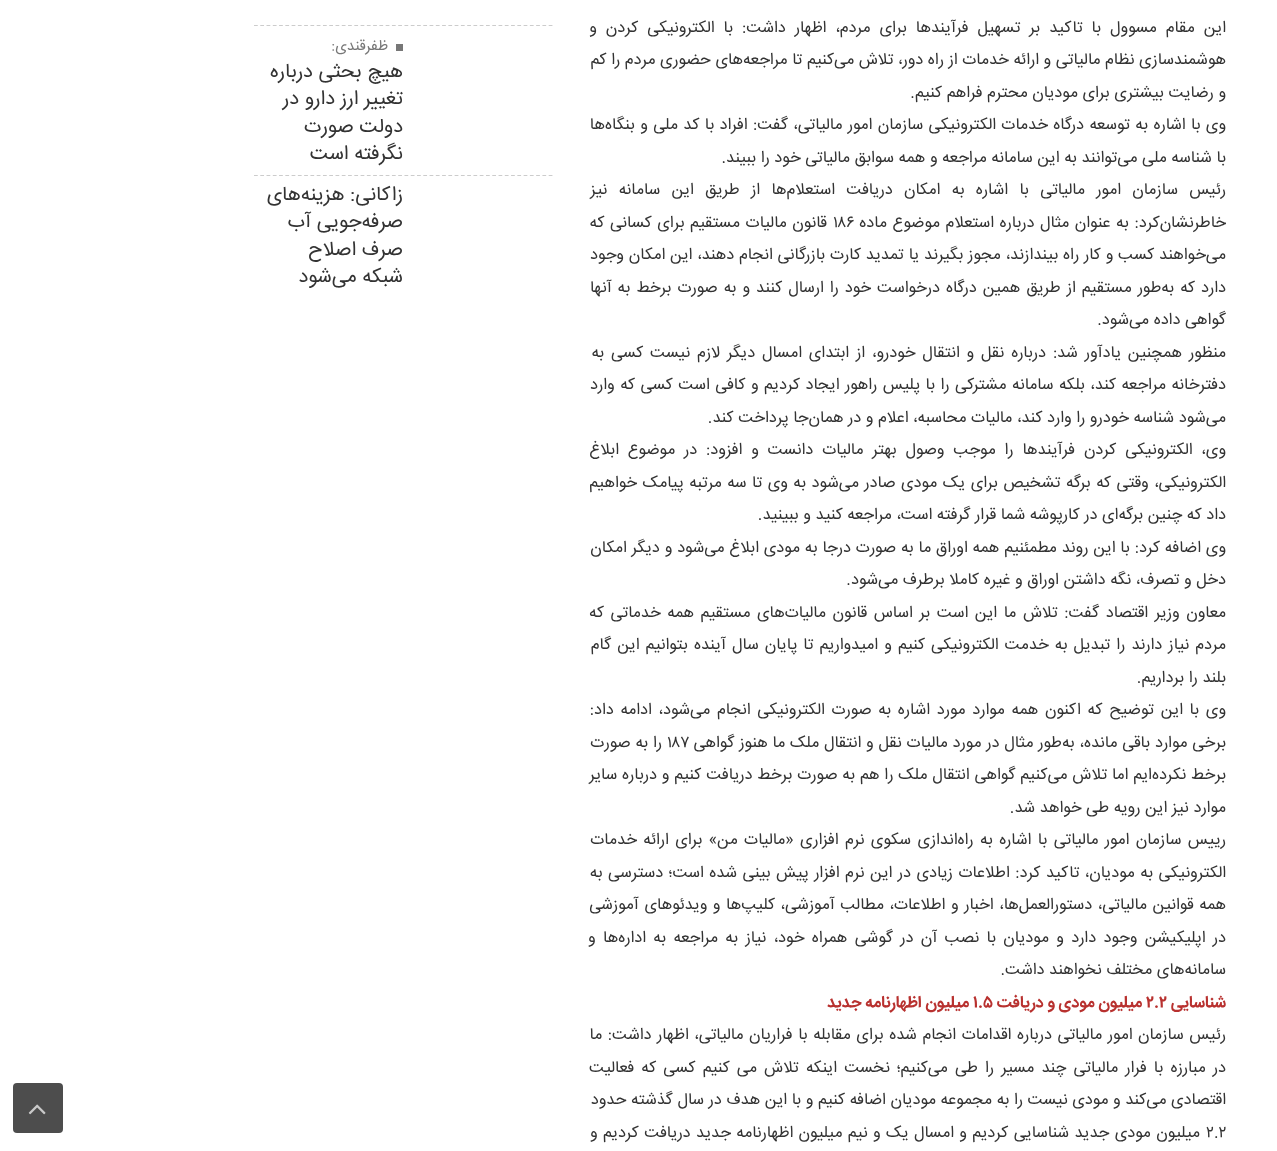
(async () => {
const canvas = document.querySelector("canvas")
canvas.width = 1277
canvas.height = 1151
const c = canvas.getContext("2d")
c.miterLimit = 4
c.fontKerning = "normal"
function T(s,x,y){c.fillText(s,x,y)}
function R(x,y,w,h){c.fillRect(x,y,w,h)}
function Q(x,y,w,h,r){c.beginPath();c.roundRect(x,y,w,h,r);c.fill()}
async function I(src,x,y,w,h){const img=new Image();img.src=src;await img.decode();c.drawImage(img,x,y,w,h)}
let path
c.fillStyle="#fff"
R(0,0,1277,1151)
c.wordSpacing="4.4px"
c.direction="rtl"
c.font="16.25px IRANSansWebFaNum"
c.fillStyle="#333"
T("این مقام مسوول با تاکید بر تسهیل فرآیندها برای مردم، اظهار داشت: با الکترونیکی کردن و",1226,32)
c.wordSpacing="0px"
T("هوشمندسازی نظام مالیاتی و ارائه خدمات از راه دور، تلاش می‌کنیم تا مراجعه‌های حضوری مردم را کم",1226,64)
T("و رضایت بیشتری برای مودیان محترم فراهم کنیم.",1226,97)
c.wordSpacing="0.75px"
T("وی با اشاره به توسعه درگاه خدمات الکترونیکی سازمان امور مالیاتی، گفت: افراد با کد ملی و بنگاه‌ها",1226,129)
c.wordSpacing="0px"
T("با شناسه ملی می‌توانند به این سامانه مراجعه و همه سوابق مالیاتی خود را ببیند.",1226,162)
c.wordSpacing="6.75px"
T("رئیس سازمان امور مالیاتی با اشاره به امکان دریافت استعلام‌ها از طریق این سامانه نیز",1226,194)
c.wordSpacing="1px"
T("خاطرنشان‌کرد: به عنوان مثال درباره استعلام موضوع ماده",1226,227)
c.wordSpacing="0px"
c.direction="ltr"
T("۱۸۶",833,227)
c.wordSpacing="1px"
c.direction="rtl"
T("قانون مالیات مستقیم برای کسانی که",827,227)
c.wordSpacing="0.25px"
T("می‌خواهند کسب و کار راه بیندازند، مجوز بگیرند یا تمدید کارت بازرگانی انجام دهند، این امکان وجود",1226,259)
c.wordSpacing="1.4px"
T("دارد که به‌طور مستقیم از طریق همین درگاه درخواست خود را ارسال کنند و به صورت برخط به آنها",1226,292)
c.wordSpacing="0px"
T("گواهی داده می‌شود.",1226,324)
c.wordSpacing="2.25px"
T("منظور همچنین یادآور شد: درباره نقل و انتقال خودرو، از ابتدای امسال دیگر لازم نیست کسی به",1226,357)
c.wordSpacing="0.9px"
T("دفترخانه مراجعه کند، بلکه سامانه مشترکی را با پلیس راهور ایجاد کردیم و کافی است کسی که وارد",1226,389)
c.wordSpacing="0px"
T("می‌شود شناسه خودرو را وارد کند، مالیات محاسبه، اعلام و در همان‌جا پرداخت کند.",1226,422)
c.wordSpacing="4.25px"
T("وی، الکترونیکی کردن فرآیندها را موجب وصول بهتر مالیات دانست و افزود: در موضوع ابلاغ",1226,454)
c.wordSpacing="0.9px"
T("الکترونیکی، وقتی که برگه تشخیص برای یک مودی صادر می‌شود به وی تا سه مرتبه پیامک خواهیم",1226,487)
c.wordSpacing="0px"
T("داد که چنین برگه‌ای در کارپوشه شما قرار گرفته است، مراجعه کنید و ببینید.",1226,519)
c.wordSpacing="0.25px"
T("وی اضافه کرد: با این روند مطمئنیم همه اوراق ما به صورت درجا به مودی ابلاغ می‌شود و دیگر امکان",1226,552)
c.wordSpacing="0px"
T("دخل و تصرف، نگه داشتن اوراق و غیره کاملا برطرف می‌شود.",1226,584)
c.wordSpacing="2px"
T("معاون وزیر اقتصاد گفت: تلاش ما این است بر اساس قانون مالیات‌های مستقیم همه خدماتی که",1226,617)
c.wordSpacing="1.5px"
T("مردم نیاز دارند را تبدیل به خدمت الکترونیکی کنیم و امیدواریم تا پایان سال آینده بتوانیم این گام",1226,649)
c.wordSpacing="0px"
T("بلند را برداریم.",1226,682)
c.wordSpacing="2.1px"
T("وی با این توضیح که اکنون همه موارد مورد اشاره به صورت الکترونیکی انجام می‌شود، ادامه داد:",1226,714)
c.wordSpacing="0.2px"
T("برخی موارد باقی مانده، به‌طور مثال در مورد مالیات نقل و انتقال ملک ما هنوز گواهی",1226,747)
c.wordSpacing="0px"
c.direction="ltr"
T("۱۸۷",667,747)
c.wordSpacing="0.2px"
c.direction="rtl"
T("را به صورت",662,747)
c.wordSpacing="0.25px"
T("برخط نکرده‌ایم اما تلاش می‌کنیم گواهی انتقال ملک را هم به صورت برخط دریافت کنیم و درباره سایر",1226,779)
c.wordSpacing="0px"
T("موارد نیز این رویه طی خواهد شد.",1226,812)
c.wordSpacing="1.8px"
T("رییس سازمان امور مالیاتی با اشاره به راه‌اندازی سکوی نرم افزاری «مالیات من» برای ارائه خدمات",1226,844)
c.wordSpacing="0.9px"
T("الکترونیکی به مودیان، تاکید کرد: اطلاعات زیادی در این نرم افزار پیش بینی شده است؛ دسترسی به",1226,877)
c.wordSpacing="1px"
T("همه قوانین مالیاتی، دستورالعمل‌ها، اخبار و اطلاعات، مطالب آموزشی، کلیپ‌ها و ویدئوهای آموزشی",1226,909)
c.wordSpacing="2.75px"
T("در اپلیکیشن وجود دارد و مودیان با نصب آن در گوشی همراه خود، نیاز به مراجعه به اداره‌ها و",1226,942)
c.wordSpacing="0px"
T("سامانه‌های مختلف نخواهند داشت.",1226,974)
c.font="bold 16.25px IRANSansWebFaNum"
c.fillStyle="#b8312f"
T("شناسایی",1226,1007)
c.direction="ltr"
T("۲.۲",1146,1007)
c.direction="rtl"
T("میلیون مودی و دریافت",1142,1007)
c.direction="ltr"
T("۱.۵",973,1007)
c.direction="rtl"
T("میلیون اظهارنامه جدید",969,1007)
c.wordSpacing="1px"
c.font="16.25px IRANSansWebFaNum"
c.fillStyle="#333"
T("رئیس سازمان امور مالیاتی درباره اقدامات انجام شده برای مقابله با فراریان مالیاتی، اظهار داشت: ما",1226,1039)
c.wordSpacing="2.5px"
T("در مبارزه با فرار مالیاتی چند مسیر را طی می‌کنیم؛ نخست اینکه تلاش می کنیم کسی که فعالیت",1226,1072)
c.wordSpacing="0px"
T("اقتصادی می‌کند و مودی نیست را به مجموعه مودیان اضافه کنیم و با این هدف در سال گذشته حدود",1226,1104)
c.direction="ltr"
T("۲.۲",1206,1137)
c.wordSpacing="0.8px"
c.direction="rtl"
T("میلیون مودی جدید شناسایی کردیم و امسال یک و نیم میلیون اظهارنامه جدید دریافت کردیم و",1200,1137)
path = new Path2D("M254 25.5h298.5")
c.strokeStyle="#ccc"
c.lineWidth=1.2
c.setLineDash([3.75,2.52])
c.stroke(path)
path = new Path2D("M254 175.5h298.5")
c.stroke(path)
c.fillStyle="#777"
R(396,44,7,7)
c.wordSpacing="0px"
c.font="15px IRANSansWebFaNum"
T("ظفرقندی:",388,50)
c.font="20px IRANSansWebFaNum"
c.fillStyle="#333"
T("هیچ بحثی درباره",403,77)
T("تغییر ارز دارو در",403,104)
T("دولت صورت",403,132)
T("نگرفته است",403,159)
T("زاکانی: هزینه‌های",403,200)
T("صرفه‌جویی آب",403,227)
T("صرف اصلاح",403,255)
T("شبکه می‌شود",403,282)
c.fillStyle="#4d4d4d"
Q(13,1083,50,50,4)
await I("1.png",28,1104,18,11)
})()
